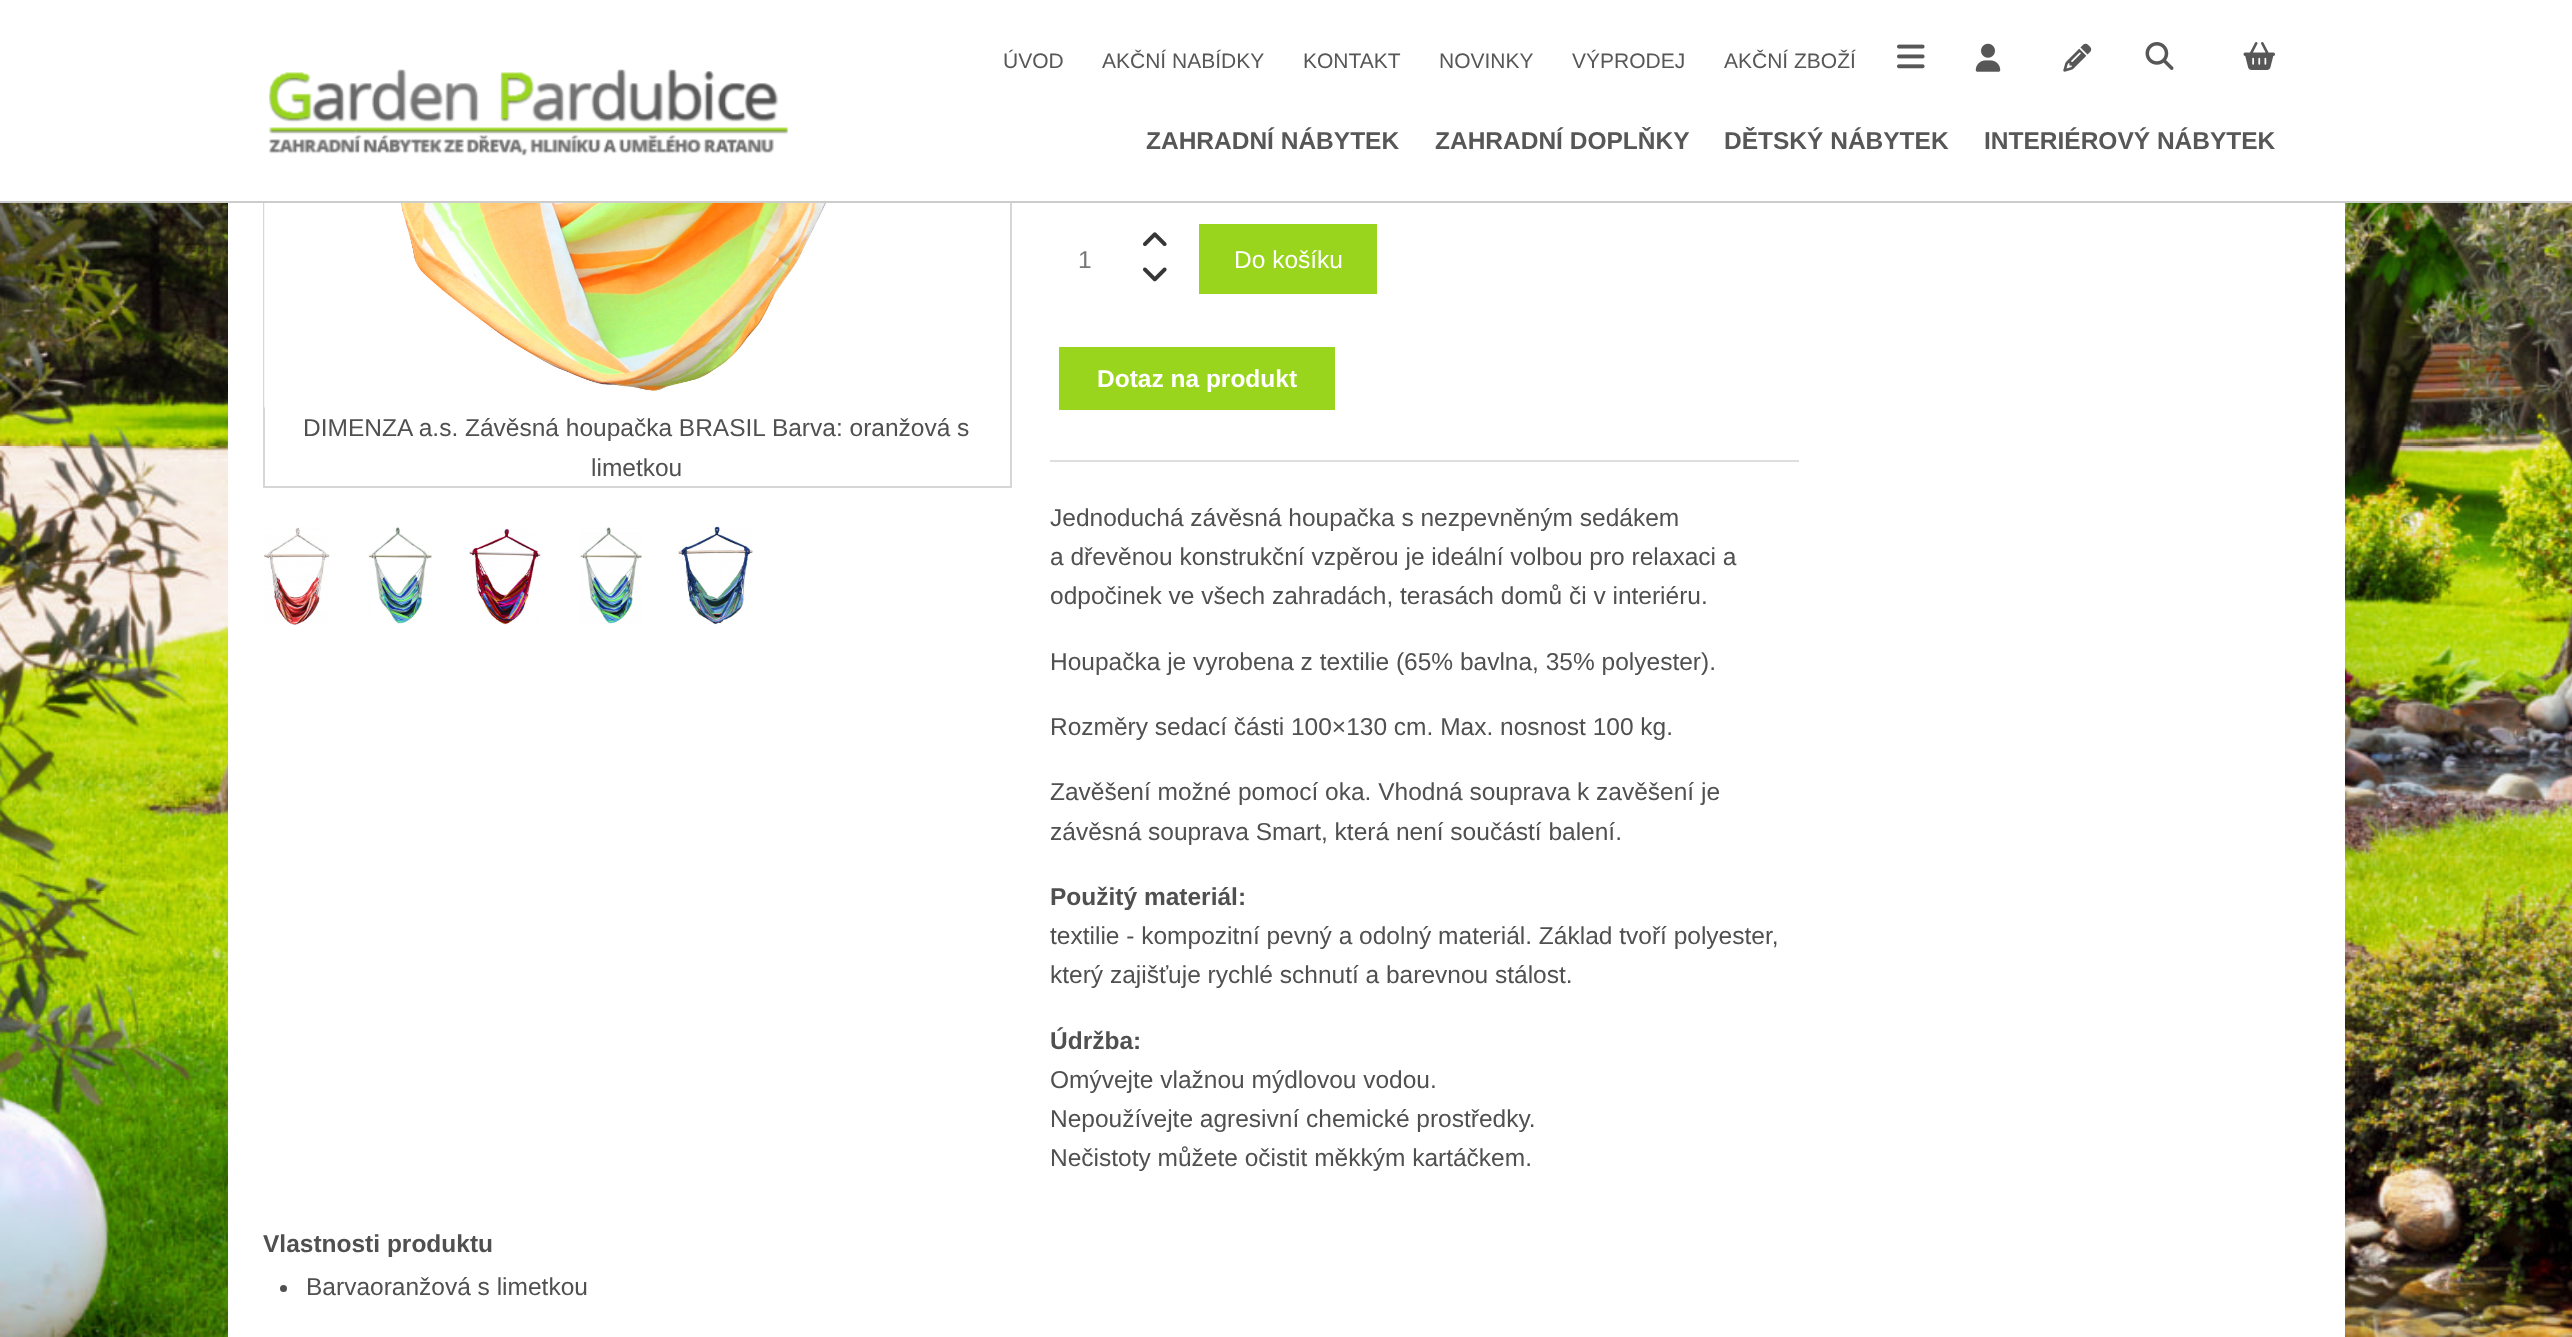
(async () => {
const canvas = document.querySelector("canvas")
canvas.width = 2572
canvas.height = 1337
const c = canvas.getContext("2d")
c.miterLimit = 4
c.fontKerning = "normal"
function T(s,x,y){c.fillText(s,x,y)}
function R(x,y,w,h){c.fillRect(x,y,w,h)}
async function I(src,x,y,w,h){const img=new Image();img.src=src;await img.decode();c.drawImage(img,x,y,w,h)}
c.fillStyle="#fff"
R(0,0,2572,1337)
await I("1.png",0,203,2572,1134)
R(228,203,2117,1134)
c.strokeStyle="#d6d6d6"
c.lineWidth=2
c.strokeRect(264,-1,747,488)
R(263,0,749,201)
c.fillStyle="#ccc"
R(0,201,2572,2)
await I("2.png",269,69,519,87)
await I("3.png",2243,42,32,28)
c.font="21px Liberation Sans"
c.fillStyle="#575757"
T("ÚVOD",1003,68)
T("AKČNÍ NABÍDKY",1102,68)
T("KONTAKT",1303,68)
T("NOVINKY",1439,68)
T("VÝPRODEJ",1572,68)
T("AKČNÍ ZBOŽÍ",1724,68)
await I("4.png",1897,44,28,25)
await I("5.png",1975,43,26,29)
await I("6.png",2063,43,29,29)
await I("7.png",2145,42,29,28)
c.font="bold 24.5px Liberation Sans"
T("ZAHRADNÍ NÁBYTEK",1146,149)
T("ZAHRADNÍ DOPLŇKY",1435,149)
T("DĚTSKÝ NÁBYTEK",1724,149)
T("INTERIÉROVÝ NÁBYTEK",1984,149)
await I("8.png",264,203,617,205)
c.font="24.5px Liberation Sans"
c.fillStyle="#505050"
T("DIMENZA a.s. Závěsná houpačka BRASIL Barva: oranžová s",303,436)
T("limetkou",591,476)
await I("9.png",264,527,66,98)
await I("10.png",368,527,64,97)
await I("11.png",469,528,72,97)
await I("12.png",580,527,62,97)
await I("13.png",678,526,75,99)
c.fillStyle="#777"
T("1",1078,268)
await I("14.png",1143,232,24,15)
await I("15.png",1143,267,24,15)
c.fillStyle="#99d51d"
R(1199,224,178,70)
c.fillStyle="#fff"
T("Do košíku",1234,268)
c.fillStyle="#99d51d"
R(1059,347,276,63)
c.font="bold 24.5px Liberation Sans"
c.fillStyle="#fff"
T("Dotaz na produkt",1097,387)
c.fillStyle="#dedede"
R(1050,460,749,2)
c.font="24.5px Liberation Sans"
c.fillStyle="#505050"
T("Jednoduchá závěsná houpačka s nezpevněným sedákem",1050,526)
T("a dřevěnou konstrukční vzpěrou je ideální volbou pro relaxaci a",1050,565)
T("odpočinek ve všech zahradách, terasách domů či v interiéru.",1050,604)
T("Houpačka je vyrobena z textilie (65% bavlna, 35% polyester).",1050,670)
T("Rozměry sedací části 100×130 cm. Max. nosnost 100 kg.",1050,735)
T("Zavěšení možné pomocí oka. Vhodná souprava k zavěšení je",1050,800)
T("závěsná souprava Smart, která není součástí balení.",1050,840)
c.font="bold 24.5px Liberation Sans"
T("Použitý materiál:",1050,905)
c.font="24.5px Liberation Sans"
T("textilie - kompozitní pevný a odolný materiál. Základ tvoří polyester,",1050,944)
T("který zajišťuje rychlé schnutí a barevnou stálost.",1050,983)
c.font="bold 24.5px Liberation Sans"
T("Údržba:",1050,1049)
c.font="24.5px Liberation Sans"
T("Omývejte vlažnou mýdlovou vodou.",1050,1088)
T("Nepoužívejte agresivní chemické prostředky.",1050,1127)
T("Nečistoty můžete očistit měkkým kartáčkem.",1050,1166)
c.font="bold 24.5px Liberation Sans"
T("Vlastnosti produktu",263,1252)
c.beginPath()
c.arc(283.5,1288.5,3.5,0,7)
c.fill()
c.font="24.5px Liberation Sans"
T("Barvaoranžová s limetkou",306,1295)
})()
